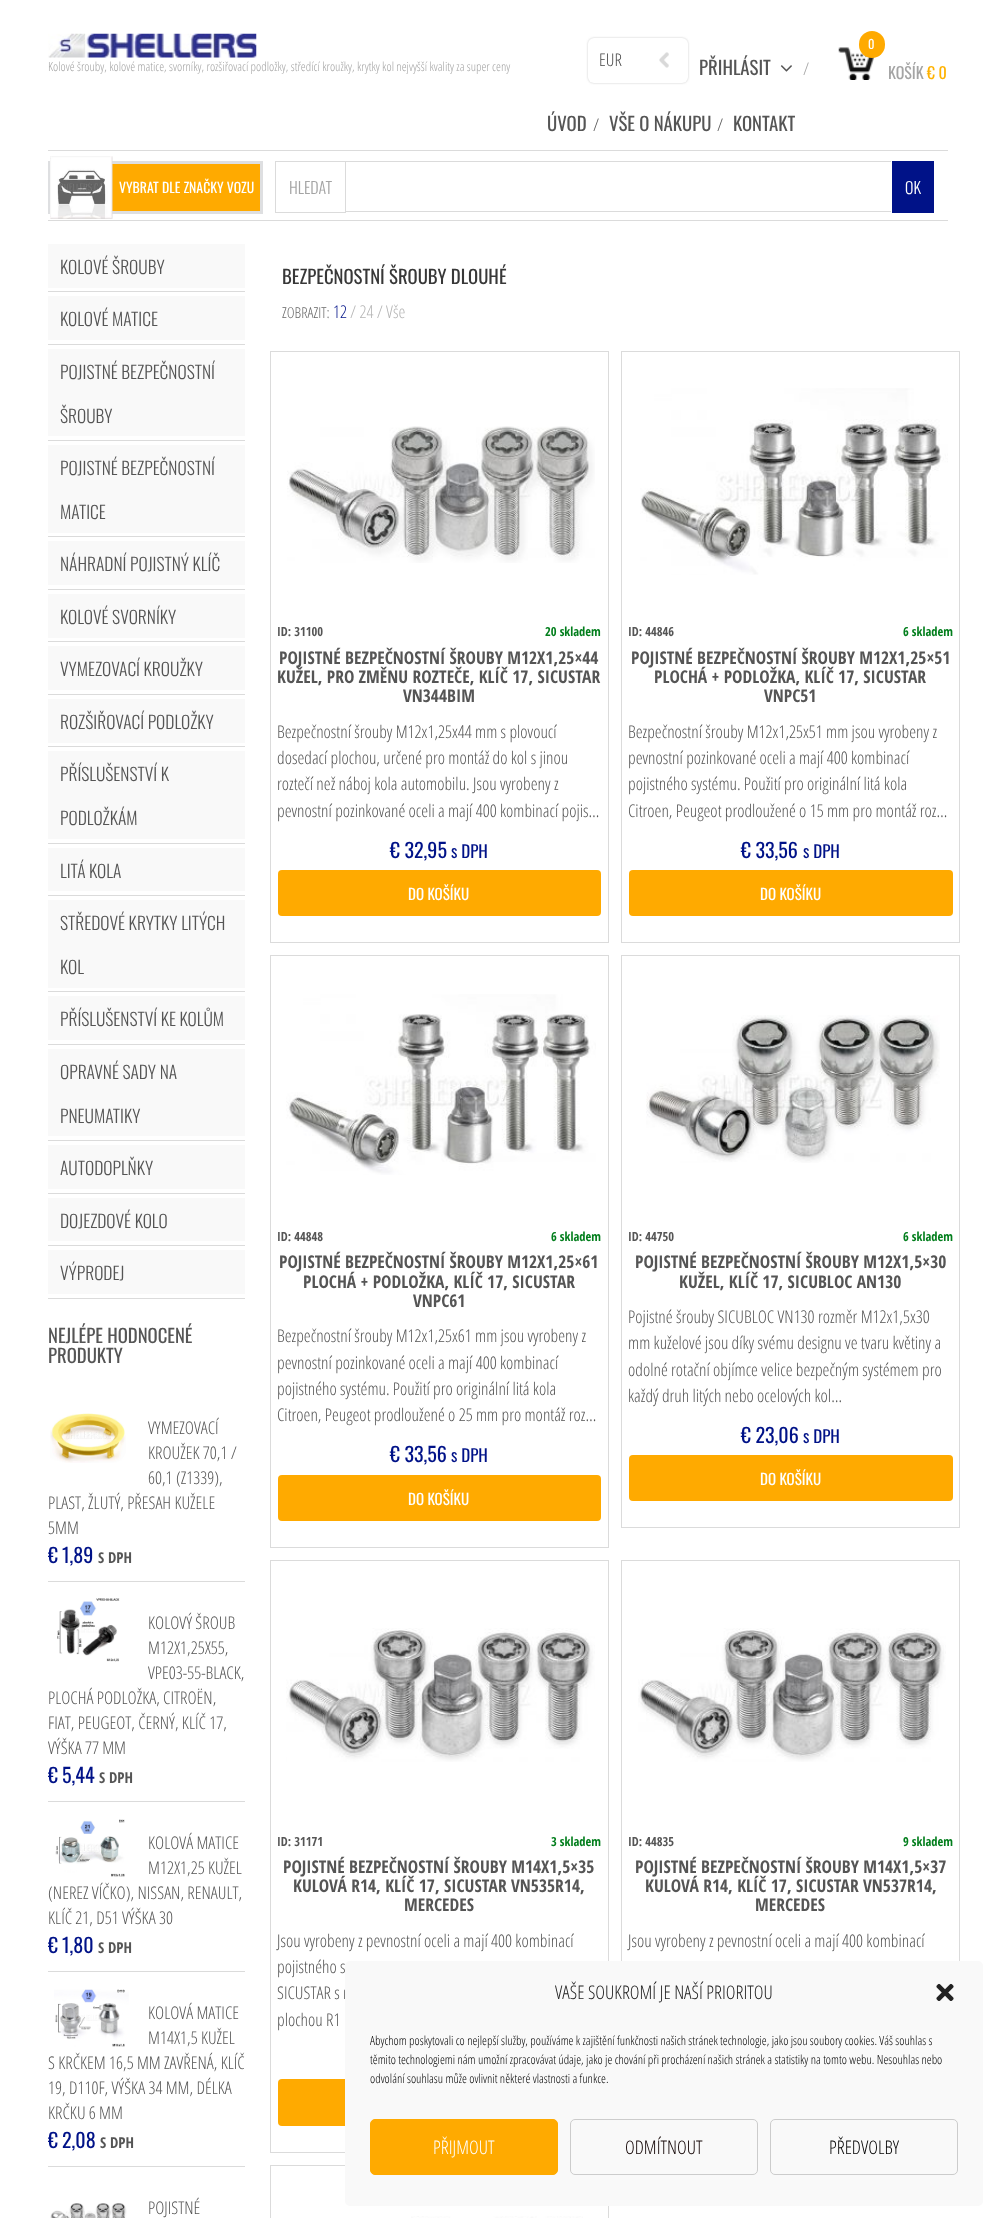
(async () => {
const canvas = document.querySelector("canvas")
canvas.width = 995
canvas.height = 2218
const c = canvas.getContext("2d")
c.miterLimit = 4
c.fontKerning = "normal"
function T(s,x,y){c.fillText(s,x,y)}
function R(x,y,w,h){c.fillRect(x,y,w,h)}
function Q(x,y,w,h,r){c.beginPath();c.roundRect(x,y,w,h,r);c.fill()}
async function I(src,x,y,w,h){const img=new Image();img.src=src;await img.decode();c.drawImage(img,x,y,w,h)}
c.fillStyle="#fff"
R(0,0,995,2218)
c.fillStyle="#dbdbdb"
R(48,150,900,1)
await I("1.png",48,33,209,25)
c.font="300 12.5px Open Sans Condensed"
c.fillStyle="#a4a4a4"
T("Kolové šrouby, kolové matice, svorníky, rozšiřovací podložky, středící kroužky, krytky kol nejvyšší kvality za super ceny",48,71)
c.fillStyle="#ccc"
c.filter="blur(1px)"
c.beginPath()
c.roundRect(588,38,100,45,6)
c.fill()
c.filter="none"
c.fillStyle="#fff"
Q(588,38,100,45,6)
c.font="300 17.5px Open Sans Condensed"
c.fillStyle="#474747"
T("EUR",599,66)
await I("2.png",659,52,10,16)
c.font="18.75px Oswald"
c.fillStyle="#555"
T("PŘIHLÁSIT",699,75)
await I("3.png",780,65,12,7)
c.font="300 17.5px Open Sans Condensed"
c.fillStyle="#a4a4a4"
T("/",803,75)
await I("4.png",838,47,36,33)
c.fillStyle="#fa0"
Q(859,31,26,27,13)
c.font="12.5px Oswald"
c.fillStyle="#fff"
T("0",868,49)
c.font="16px Oswald"
c.fillStyle="#a4a4a4"
T("KOŠÍK",888,79)
c.fillStyle="#ffb200"
T("€ 0",927,79)
c.font="18.75px Oswald"
c.fillStyle="#555"
T("ÚVOD",547,131)
c.font="300 17.5px Open Sans Condensed"
T("/",593,131)
c.font="18.75px Oswald"
T("VŠE O NÁKUPU",609,131)
c.font="300 17.5px Open Sans Condensed"
T("/",717,131)
c.font="18.75px Oswald"
T("KONTAKT",733,131)
c.fillStyle="#dbdbdb"
R(48,220,900,1)
c.fillStyle="#fa0"
R(112,164,148,47)
c.strokeStyle="#dedfe1"
c.lineWidth=3
c.strokeRect(49.5,162.5,212,50)
await I("5.png",50,156,63,63)
c.font="13.75px Oswald"
c.fillStyle="#fff"
T("VYBRAT DLE ZNAČKY VOZU",119,193)
c.strokeStyle="#dbdbdb"
c.lineWidth=1
c.strokeRect(275.5,161.5,70,51)
c.font="300 16px Oswald"
c.fillStyle="#a4a4a4"
T("HLEDAT",289,194)
c.fillStyle="#dbdbdb"
R(346,161,545,1)
R(346,211,545,1)
c.fillStyle="#001288"
R(892,161,42,52)
c.fillStyle="#fff"
T("OK",905,194)
c.fillStyle="#dbdbdb"
R(48,291,197,1)
c.fillStyle="#f9f9f9"
R(48,244,197,44)
c.font="300 17.5px Oswald"
c.fillStyle="#555"
T("KOLOVÉ ŠROUBY",60,274)
c.fillStyle="#dbdbdb"
R(48,344,197,1)
c.fillStyle="#f9f9f9"
R(48,296,197,44)
c.fillStyle="#555"
T("KOLOVÉ MATICE",60,326)
c.fillStyle="#dbdbdb"
R(48,440,197,1)
c.fillStyle="#f9f9f9"
R(48,349,197,87)
c.fillStyle="#555"
T("POJISTNÉ BEZPEČNOSTNÍ",60,379)
T("ŠROUBY",60,423)
c.fillStyle="#dbdbdb"
R(48,536,197,1)
c.fillStyle="#f9f9f9"
R(48,445,197,88)
c.fillStyle="#555"
T("POJISTNÉ BEZPEČNOSTNÍ",60,475)
T("MATICE",60,519)
c.fillStyle="#dbdbdb"
R(48,589,197,1)
c.fillStyle="#f9f9f9"
R(48,541,197,44)
c.fillStyle="#555"
T("NÁHRADNÍ POJISTNÝ KLÍČ",60,571)
c.fillStyle="#dbdbdb"
R(48,641,197,1)
c.fillStyle="#f9f9f9"
R(48,594,197,44)
c.fillStyle="#555"
T("KOLOVÉ SVORNÍKY",60,624)
c.fillStyle="#dbdbdb"
R(48,694,197,1)
c.fillStyle="#f9f9f9"
R(48,646,197,44)
c.fillStyle="#555"
T("VYMEZOVACÍ KROUŽKY",60,676)
c.fillStyle="#dbdbdb"
R(48,746,197,1)
c.fillStyle="#f9f9f9"
R(48,699,197,44)
c.fillStyle="#555"
T("ROZŠIŘOVACÍ PODLOŽKY",60,729)
c.fillStyle="#dbdbdb"
R(48,843,197,1)
c.fillStyle="#f9f9f9"
R(48,751,197,88)
c.fillStyle="#555"
T("PŘÍSLUŠENSTVÍ K",60,781)
T("PODLOŽKÁM",60,825)
c.fillStyle="#dbdbdb"
R(48,895,197,1)
c.fillStyle="#f9f9f9"
R(48,848,197,43)
c.fillStyle="#555"
T("LITÁ KOLA",60,878)
c.fillStyle="#dbdbdb"
R(48,991,197,1)
c.fillStyle="#f9f9f9"
R(48,900,197,88)
c.fillStyle="#555"
T("STŘEDOVÉ KRYTKY LITÝCH",60,930)
T("KOL",60,974)
c.fillStyle="#dbdbdb"
R(48,1044,197,1)
c.fillStyle="#f9f9f9"
R(48,996,197,44)
c.fillStyle="#555"
T("PŘÍSLUŠENSTVÍ KE KOLŮM",60,1026)
c.fillStyle="#dbdbdb"
R(48,1140,197,1)
c.fillStyle="#f9f9f9"
R(48,1049,197,87)
c.fillStyle="#555"
T("OPRAVNÉ SADY NA",60,1079)
T("PNEUMATIKY",60,1123)
c.fillStyle="#dbdbdb"
R(48,1193,197,1)
c.fillStyle="#f9f9f9"
R(48,1145,197,44)
c.fillStyle="#555"
T("AUTODOPLŇKY",60,1175)
c.fillStyle="#dbdbdb"
R(48,1245,197,1)
c.fillStyle="#f9f9f9"
R(48,1198,197,43)
c.fillStyle="#555"
T("DOJEZDOVÉ KOLO",60,1228)
c.fillStyle="#dbdbdb"
R(48,1298,197,1)
c.fillStyle="#f9f9f9"
R(48,1250,197,44)
c.fillStyle="#555"
T("VÝPRODEJ",60,1280)
c.font="18.75px Oswald"
T("NEJLÉPE HODNOCENÉ",48,1343)
T("PRODUKTY",48,1363)
c.fillStyle="#dbdbdb"
R(48,1581,197,1)
await I("6.png",50,1413,76,50)
c.font="300 17.5px Open Sans Condensed"
c.fillStyle="#555"
T("VYMEZOVACÍ",148,1434)
T("KROUŽEK 70,1 /",148,1459)
T("60,1 (Z1339),",148,1484)
T("PLAST, ŽLUTÝ, PŘESAH KUŽELE",48,1509)
T("5MM",48,1534)
c.save()
c.beginPath()
c.rect(48,1390,197,191)
c.clip()
c.font="20px Oswald"
c.fillStyle="#001288"
T("€",48,1563)
c.restore()
c.font="20px Oswald"
c.fillStyle="#001288"
T("1,89",62,1563)
c.font="bold 15px Open Sans Condensed"
c.fillStyle="#555"
T("S DPH",98,1563)
c.fillStyle="#dbdbdb"
R(48,1801,197,1)
await I("7.png",57,1598,63,64)
c.font="300 17.5px Open Sans Condensed"
c.fillStyle="#555"
T("KOLOVÝ ŠROUB",148,1629)
T("M12X1,25X55,",148,1654)
T("VPE03-55-BLACK,",148,1679)
T("PLOCHÁ PODLOŽKA, CITROËN,",48,1704)
T("FIAT, PEUGEOT, ČERNÝ, KLÍČ 17,",48,1729)
T("VÝŠKA 77 MM",48,1754)
c.save()
c.beginPath()
c.rect(48,1585,197,216)
c.clip()
c.font="20px Oswald"
c.fillStyle="#001288"
T("€",48,1783)
c.restore()
c.font="20px Oswald"
c.fillStyle="#001288"
T("5,44",62,1783)
c.font="bold 15px Open Sans Condensed"
c.fillStyle="#555"
T("S DPH",99,1783)
c.fillStyle="#dbdbdb"
R(48,1971,197,1)
await I("8.png",55,1819,70,58)
c.font="300 17.5px Open Sans Condensed"
c.fillStyle="#555"
T("KOLOVÁ MATICE",148,1849)
T("M12X1,25 KUŽEL",148,1874)
T("(NEREZ VÍČKO), NISSAN, RENAULT,",48,1899)
T("KLÍČ 21, D51 VÝŠKA 30",48,1924)
c.save()
c.beginPath()
c.rect(48,1805,197,166)
c.clip()
c.font="20px Oswald"
c.fillStyle="#001288"
T("€",48,1953)
c.restore()
c.font="20px Oswald"
c.fillStyle="#001288"
T("1,80",62,1953)
c.font="bold 15px Open Sans Condensed"
c.fillStyle="#555"
T("S DPH",98,1953)
c.fillStyle="#dbdbdb"
R(48,2166,197,1)
await I("9.png",54,1989,75,58)
c.font="300 17.5px Open Sans Condensed"
c.fillStyle="#555"
T("KOLOVÁ MATICE",148,2019)
T("M14X1,5 KUŽEL",148,2044)
T("S KRČKEM 16,5 MM ZAVŘENÁ, KLÍČ",48,2069)
T("19, D110F, VÝŠKA 34 MM, DÉLKA",48,2094)
T("KRČKU 6 MM",48,2119)
c.save()
c.beginPath()
c.rect(48,1975,197,191)
c.clip()
c.font="20px Oswald"
c.fillStyle="#001288"
T("€",48,2148)
c.restore()
c.font="20px Oswald"
c.fillStyle="#001288"
T("2,08",62,2148)
c.font="bold 15px Open Sans Condensed"
c.fillStyle="#555"
T("S DPH",100,2148)
await I("10.png",50,2203,77,15)
c.font="300 17.5px Open Sans Condensed"
T("POJISTNÉ",148,2214)
c.font="18.75px Oswald"
c.fillStyle="#383838"
T("BEZPEČNOSTNÍ ŠROUBY DLOUHÉ",282,284)
c.font="300 15px Open Sans Condensed"
c.fillStyle="#686868"
T("ZOBRAZIT:",282,318)
c.font="300 17.5px Open Sans Condensed"
c.fillStyle="#001288"
T("12",333,318)
c.fillStyle="#b4b4b4"
T("/ 24 / Vše",350,318)
c.strokeRect(270.5,351.5,338,591)
await I("11.png",287,426,308,137)
c.font="bold 12.5px Open Sans Condensed"
c.fillStyle="#555"
T("ID: 31100",277,636)
c.fillStyle="#027e1c"
T("20 skladem",545,636)
c.font="bold 17.5px Open Sans Condensed"
c.fillStyle="#555"
T("POJISTNÉ BEZPEČNOSTNÍ ŠROUBY M12X1,25×44",279,664)
T("KUŽEL, PRO ZMĚNU ROZTEČE, KLÍČ 17, SICUSTAR",277,683)
T("VN344BIM",403,702)
c.font="300 17.5px Open Sans Condensed"
T("Bezpečnostní šrouby M12x1,25x44 mm s plovoucí",277,738)
T("dosedací plochou, určené pro montáž do kol s jinou",277,764)
T("roztečí než náboj kola automobilu. Jsou vyrobeny z",277,790)
T("pevnostní pozinkované oceli a mají 400 kombinací pojis…",277,817)
c.font="20px Oswald"
c.fillStyle="#001288"
T("€ 32,95",390,858)
c.font="17px Oswald"
T("s DPH",451,858)
c.fillStyle="#fa0"
Q(278,870,323,46,4)
c.font="15px Oswald"
c.fillStyle="#fff"
T("DO KOŠÍKU",408,900)
c.strokeRect(621.5,351.5,338,591)
await I("12.png",640,388,308,187)
c.font="bold 12.5px Open Sans Condensed"
c.fillStyle="#555"
T("ID: 44846",628,636)
c.fillStyle="#027e1c"
T("6 skladem",903,636)
c.font="bold 17.5px Open Sans Condensed"
c.fillStyle="#555"
T("POJISTNÉ BEZPEČNOSTNÍ ŠROUBY M12X1,25×51",631,664)
T("PLOCHÁ + PODLOŽKA, KLÍČ 17, SICUSTAR",654,683)
T("VNPC51",764,702)
c.font="300 17.5px Open Sans Condensed"
T("Bezpečnostní šrouby M12x1,25x51 mm jsou vyrobeny z",628,738)
T("pevnostní pozinkované oceli a mají 400 kombinací",628,764)
T("pojistného systému. Použití pro originální litá kola",628,790)
T("Citroen, Peugeot prodloužené o 15 mm pro montáž roz…",628,817)
c.font="20px Oswald"
c.fillStyle="#001288"
T("€ 33,56",741,858)
c.font="17px Oswald"
T("s DPH",803,858)
c.fillStyle="#fa0"
Q(629,870,324,46,4)
c.font="15px Oswald"
c.fillStyle="#fff"
T("DO KOŠÍKU",760,900)
c.strokeRect(270.5,955.5,338,592)
await I("13.png",286,994,310,181)
c.font="bold 12.5px Open Sans Condensed"
c.fillStyle="#555"
T("ID: 44848",277,1241)
c.fillStyle="#027e1c"
T("6 skladem",551,1241)
c.font="bold 17.5px Open Sans Condensed"
c.fillStyle="#555"
T("POJISTNÉ BEZPEČNOSTNÍ ŠROUBY M12X1,25×61",279,1268)
T("PLOCHÁ + PODLOŽKA, KLÍČ 17, SICUSTAR",303,1288)
T("VNPC61",413,1307)
c.font="300 17.5px Open Sans Condensed"
T("Bezpečnostní šrouby M12x1,25x61 mm jsou vyrobeny z",277,1342)
T("pevnostní pozinkované oceli a mají 400 kombinací",277,1369)
T("pojistného systému. Použití pro originální litá kola",277,1395)
T("Citroen, Peugeot prodloužené o 25 mm pro montáž roz…",277,1421)
c.font="20px Oswald"
c.fillStyle="#001288"
T("€ 33,56",390,1462)
c.font="17px Oswald"
T("s DPH",451,1462)
c.fillStyle="#fa0"
Q(278,1475,323,46,4)
c.font="15px Oswald"
c.fillStyle="#fff"
T("DO KOŠÍKU",408,1505)
c.strokeRect(621.5,955.5,338,572)
await I("14.png",646,1015,294,148)
c.font="bold 12.5px Open Sans Condensed"
c.fillStyle="#555"
T("ID: 44750",628,1241)
c.fillStyle="#027e1c"
T("6 skladem",903,1241)
c.font="bold 17.5px Open Sans Condensed"
c.fillStyle="#555"
T("POJISTNÉ BEZPEČNOSTNÍ ŠROUBY M12X1,5×30",635,1268)
T("KUŽEL, KLÍČ 17, SICUBLOC AN130",679,1288)
c.font="300 17.5px Open Sans Condensed"
T("Pojistné šrouby SICUBLOC VN130 rozměr M12x1,5x30",628,1323)
T("mm kuželové jsou díky svému designu ve tvaru květiny a",628,1349)
T("odolné rotační objímce velice bezpečným systémem pro",628,1376)
T("každý druh litých nebo ocelových kol…",628,1402)
c.font="20px Oswald"
c.fillStyle="#001288"
T("€ 23,06",741,1443)
c.font="17px Oswald"
T("s DPH",803,1443)
c.fillStyle="#fa0"
Q(629,1455,324,46,4)
c.font="15px Oswald"
c.fillStyle="#fff"
T("DO KOŠÍKU",760,1485)
c.strokeRect(270.5,1560.5,338,592)
await I("15.png",286,1628,309,134)
c.font="bold 12.5px Open Sans Condensed"
c.fillStyle="#555"
T("ID: 31171",277,1846)
c.fillStyle="#027e1c"
T("3 skladem",551,1846)
c.font="bold 17.5px Open Sans Condensed"
c.fillStyle="#555"
T("POJISTNÉ BEZPEČNOSTNÍ ŠROUBY M14X1,5×35",283,1873)
T("KULOVÁ R14, KLÍČ 17, SICUSTAR VN535R14,",293,1892)
T("MERCEDES",404,1911)
c.font="300 17.5px Open Sans Condensed"
T("Jsou vyrobeny z pevnostní oceli a mají 400 kombinací",277,1947)
T("pojistného s",277,1973)
T("SICUSTAR s r",277,1999)
T("plochou R1",277,2026)
c.fillStyle="#fa0"
Q(278,2079,323,47,4)
c.strokeRect(621.5,1560.5,338,592)
await I("16.png",638,1628,308,134)
c.font="bold 12.5px Open Sans Condensed"
c.fillStyle="#555"
T("ID: 44835",628,1846)
c.fillStyle="#027e1c"
T("9 skladem",903,1846)
c.font="bold 17.5px Open Sans Condensed"
c.fillStyle="#555"
T("POJISTNÉ BEZPEČNOSTNÍ ŠROUBY M14X1,5×37",635,1873)
T("KULOVÁ R14, KLÍČ 17, SICUSTAR VN537R14,",645,1892)
T("MERCEDES",755,1911)
c.font="300 17.5px Open Sans Condensed"
T("Jsou vyrobeny z pevnostní oceli a mají 400 kombinací",628,1947)
c.strokeRect(270.5,2165.5,338,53)
await I("17.png",411,2216,172,2)
c.fillStyle="#f9f9f9"
Q(345,1961,638,245,5)
c.font="300 18.75px Open Sans Condensed"
c.fillStyle="#222"
T("VAŠE SOUKROMÍ JE NAŠÍ PRIORITOU",555,1999)
await I("18.png",936,1983,18,18)
c.font="300 12.5px Open Sans Condensed"
c.fillStyle="#000"
T("Abychom poskytovali co nejlepší služby, používáme k zajištění funkčnosti našich stránek technologie, jako jsou soubory cookies. Váš souhlas s",370,2045)
T("těmito technologiemi nám umožní zpracovávat údaje, jako je chování při procházení našich stránek a statistiky na tomto webu. Nesouhlas nebo",370,2064)
T("odvolání souhlasu může ovlivnit některé vlastnosti a funkce.",370,2083)
c.fillStyle="#fa0"
c.beginPath()
c.roundRect(370.5,2119.5,187,55,4.5)
c.fill()
c.strokeStyle="#fa0"
c.stroke()
c.font="300 18.75px Open Sans Condensed"
c.fillStyle="#fff"
T("PŘIJMOUT",433,2154)
c.beginPath()
c.roundRect(570.5,2119.5,187,55,4.5)
c.strokeStyle="#ccc"
c.stroke()
c.fillStyle="#0f0000"
T("ODMÍTNOUT",625,2154)
c.beginPath()
c.roundRect(770.5,2119.5,187,55,4.5)
c.stroke()
c.fillStyle="#000"
T("PŘEDVOLBY",829,2154)
})()
